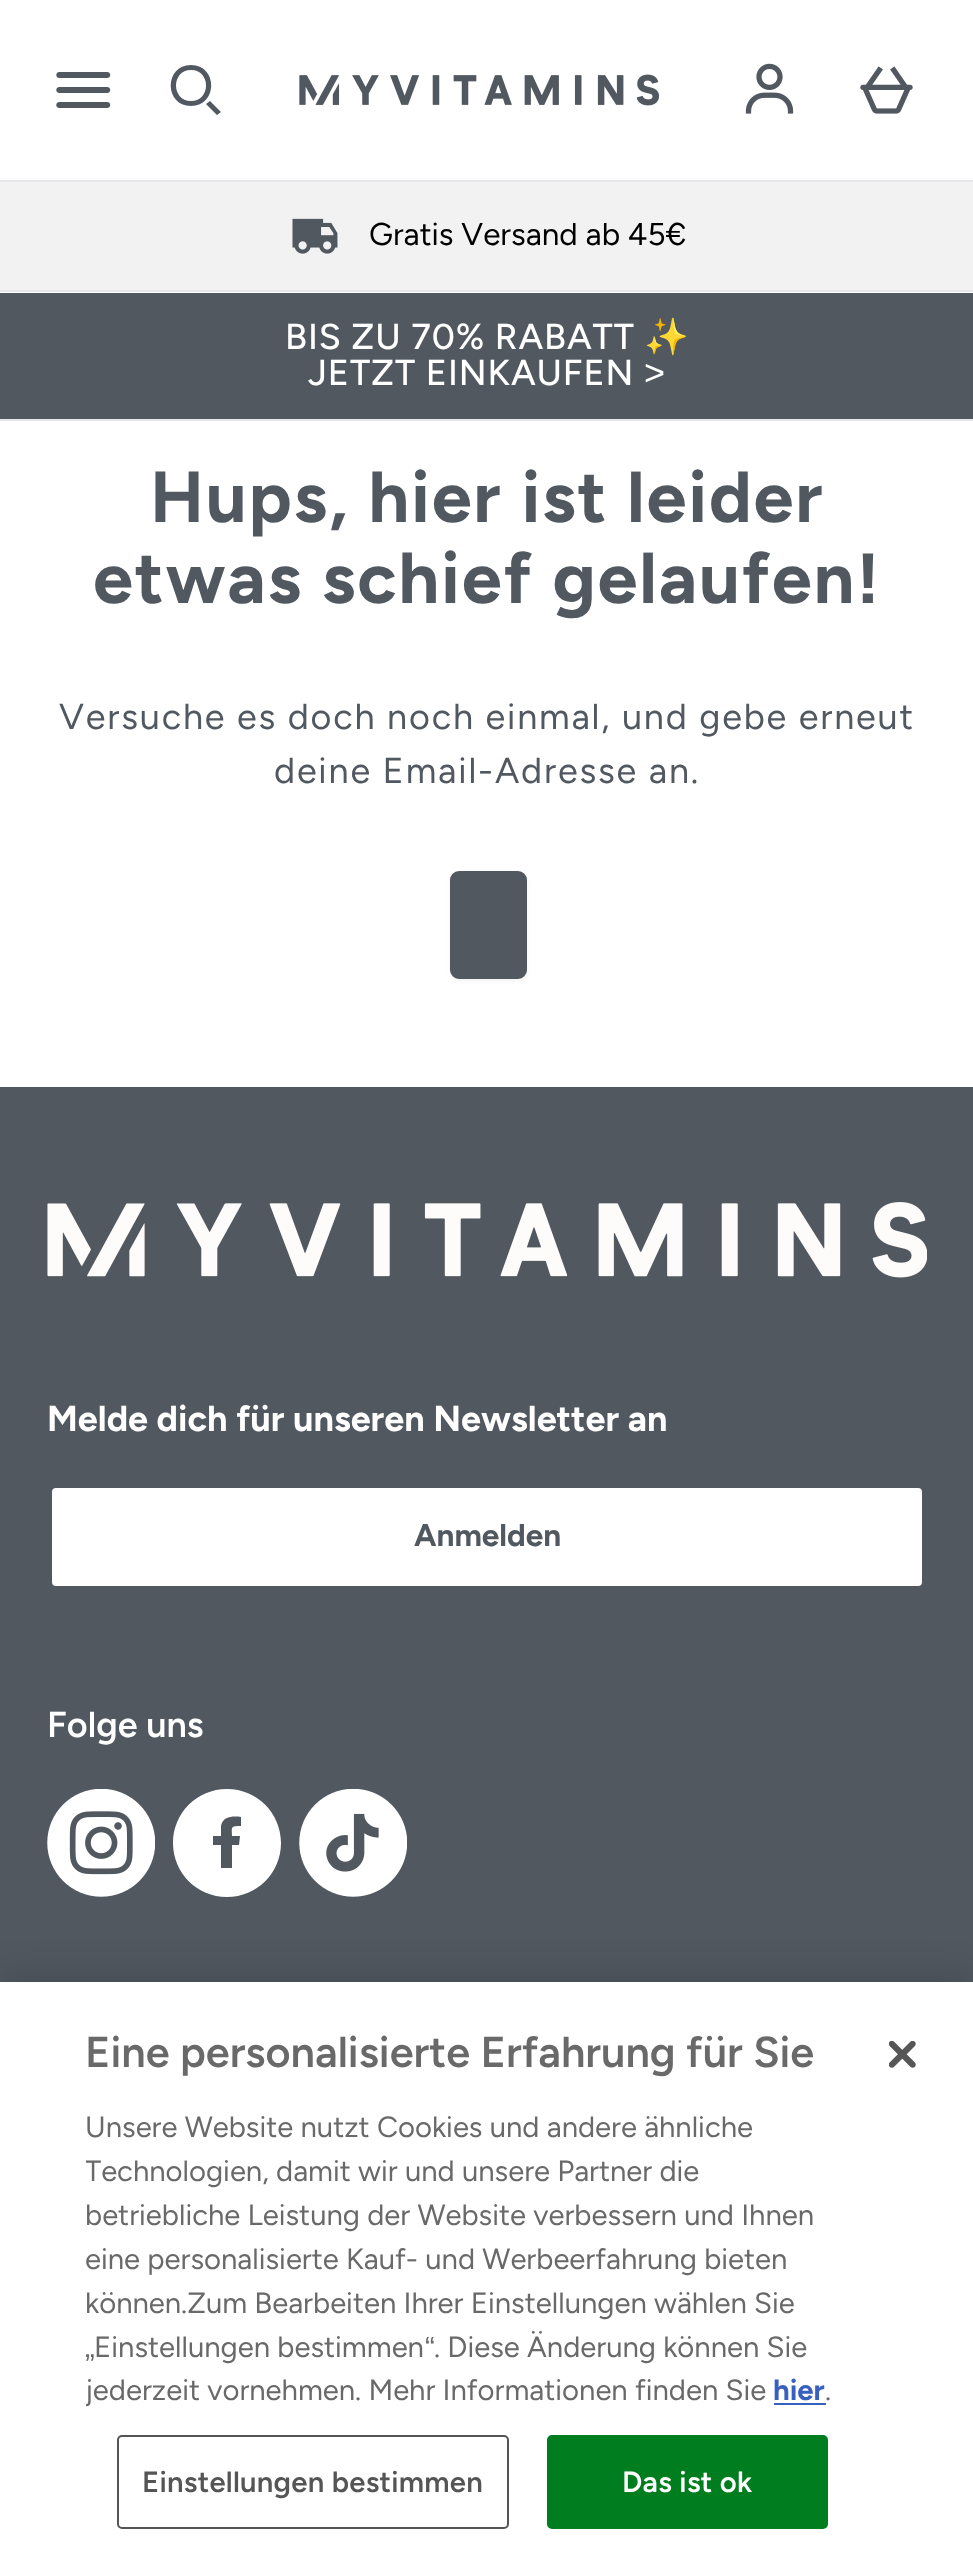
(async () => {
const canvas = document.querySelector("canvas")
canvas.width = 973
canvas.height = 2563
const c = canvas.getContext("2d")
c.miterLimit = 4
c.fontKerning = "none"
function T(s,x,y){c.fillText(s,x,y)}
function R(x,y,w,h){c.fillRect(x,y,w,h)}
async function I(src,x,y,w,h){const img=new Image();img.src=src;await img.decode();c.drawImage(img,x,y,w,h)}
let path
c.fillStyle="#fff"
R(0,0,973,2563)
await I("1.png",56,72,55,36)
c.fillStyle="#515860"
path = new Path2D("M221 112l-11-11l-4 3l11 11zm-30-42c-20 0-20 31 0 31c20 0 20-31 0-31zm0-5c27 0 27 41 0 41c-27 0-27-41 0-41z")
c.fill(path,"evenodd")
await I("2.png",299,74,360,32)
await I("3.png",745,63,49,51)
await I("4.png",860,66,53,48)
c.fillStyle="#f2f2f2"
R(0,182,973,108)
c.fillStyle="#e5e7eb"
R(0,180,973,2)
await I("5.png",292,218,46,36)
c.font="31.5px Figtree"
c.fillStyle="#000"
T("Gratis Versand ab 45€",369,245)
c.fillStyle="#515860"
R(0,293,973,126)
c.fillStyle="#e5e7eb"
R(0,290,973,2)
R(0,419,973,2)
c.letterSpacing="0.9px"
c.font="500 36px Figtree"
c.fillStyle="#fff"
T("BIS ZU 70% RABATT",285,349)
c.font="36px Noto Color Emoji"
T("✨",644,349)
c.font="500 36px Figtree"
T("JETZT EINKAUFEN",308,385)
c.font="36px Liberation Sans"
T(">",644,385)
c.letterSpacing="1.8px"
c.font="bold 72px Figtree"
c.fillStyle="#515860"
T("Hups, hier ist leider",150,522)
T("etwas schief gelaufen",93,603)
c.font="bold 72px Liberation Sans"
T("!",856,603)
c.font="36px Figtree"
T("Versuche es doch noch einmal, und gebe erneut",59,729)
T("deine Email-Adresse an.",274,783)
c.fillStyle="#0000000d"
c.filter="blur(2px)"
c.beginPath()
c.roundRect(450,873,77,108,9)
c.fill()
c.filter="none"
c.fillStyle="#515860"
c.beginPath()
c.roundRect(451,872,75,106,8)
c.fill()
c.strokeStyle="#515860"
c.lineWidth=2
c.stroke()
R(0,1087,973,895)
await I("6.png",47,1202,880,76)
c.letterSpacing="0px"
c.font="bold 36px Figtree"
c.fillStyle="#fff"
T("Melde dich für unseren Newsletter an",47,1431)
c.beginPath()
c.roundRect(49.5,1485.5,875,103,6.5)
c.fill()
c.lineWidth=5
c.stroke()
c.font="bold 31.5px Figtree"
c.fillStyle="#515860"
T("Anmelden",414,1546)
c.font="600 36px Figtree"
c.fillStyle="#fff"
T("Folge uns",47,1737)
await I("7.png",47,1789,108,108)
path = new Path2D("M281 1843c0 30-24 54-54 54c-30 0-54-24-54-54c0-30 24-54 54-54c30 0 54 24 54 54zm-42 2l1-9h-8c0-9-2-10 9-10v-9c-8-1-18-1-20 9v10h-8v9h8v23h11v-23z")
c.fill(path,"evenodd")
await I("8.png",299,1789,108,108)
c.fillStyle="#00000033"
c.filter="blur(20px)"
c.beginPath()
c.rect(0,1982,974,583)
c.fill()
c.filter="none"
c.fillStyle="#fff"
R(0,1982,973,581)
c.font="600 43.25px Figtree"
c.fillStyle="#696969"
T("Eine personalisierte Erfahrung für Sie",85,2067)
c.font="29.25px Figtree"
T("Unsere Website nutzt Cookies und andere ähnliche",85,2137)
c.save()
c.beginPath()
c.rect(86,2027,760,385)
c.clip()
T("Technologien, damit wir und unsere Partner die",85,2181)
c.restore()
T("betriebliche Leistung der Website verbessern und Ihnen",85,2225)
T("eine personalisierte Kauf- und Werbeerfahrung bieten",85,2269)
T("können.Zum Bearbeiten Ihrer Einstellungen wählen Sie",85,2313)
T("Einstellungen bestimmen",94,2357)
c.font="29.25px Liberation Sans"
T("“",425,2357)
c.font="29.25px Figtree"
T(". Diese Änderung können Sie",434,2357)
c.save()
c.beginPath()
c.rect(86,2027,760,385)
c.clip()
c.font="29.25px Liberation Sans"
T("„",85,2357)
c.font="29.25px Figtree"
T("jederzeit vornehmen. Mehr Informationen finden Sie",85,2400)
c.restore()
c.font="bold 29.25px Figtree"
c.fillStyle="#3860be"
T("hier",773,2400)
R(774,2403,52,2)
c.font="29.25px Figtree"
c.fillStyle="#696969"
T(".",825,2400)
c.beginPath()
c.roundRect(118,2436,390,92,4)
c.strokeStyle="#555"
c.lineWidth=2
c.stroke()
c.letterSpacing="0.25px"
c.font="600 29.25px Figtree"
c.fillStyle="#555"
T("Einstellungen bestimmen",142,2492)
c.fillStyle="#007d1e"
c.beginPath()
c.roundRect(548,2436,279,92,4)
c.fill()
c.strokeStyle="#007d1e"
c.stroke()
c.fillStyle="#fff"
T("Das ist ok",622,2492)
await I("9.png",889,2041,27,27)
})()
